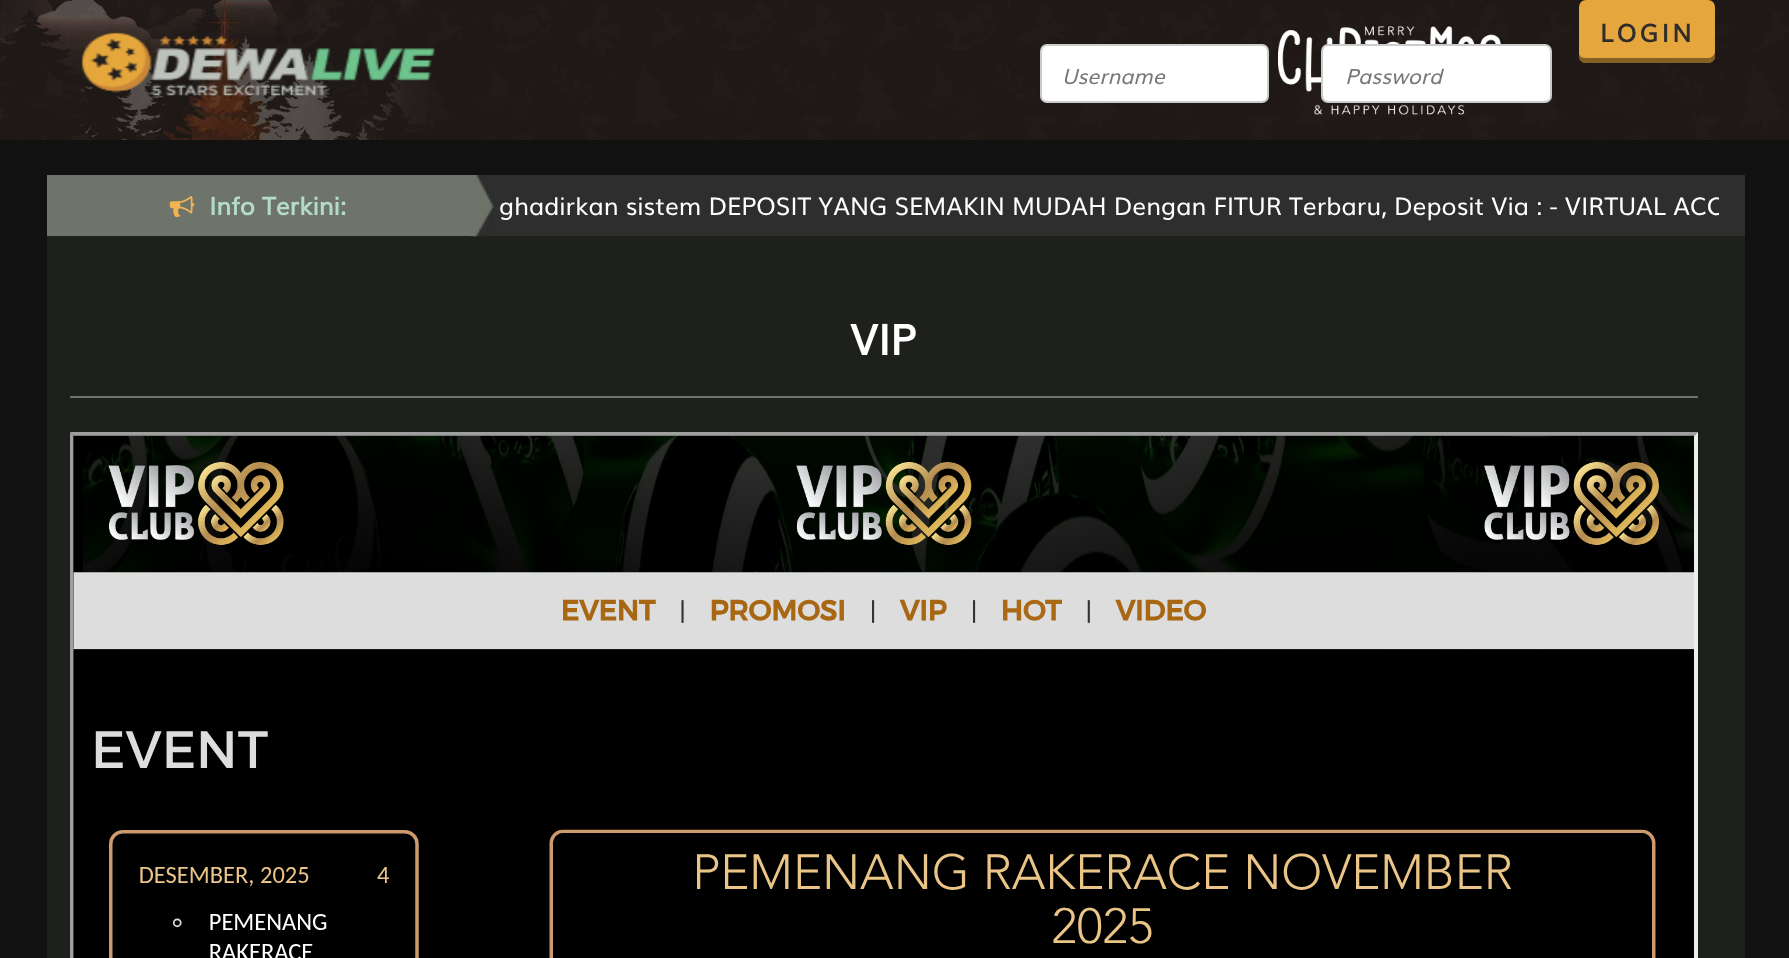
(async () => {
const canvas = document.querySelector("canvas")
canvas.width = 1789
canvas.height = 958
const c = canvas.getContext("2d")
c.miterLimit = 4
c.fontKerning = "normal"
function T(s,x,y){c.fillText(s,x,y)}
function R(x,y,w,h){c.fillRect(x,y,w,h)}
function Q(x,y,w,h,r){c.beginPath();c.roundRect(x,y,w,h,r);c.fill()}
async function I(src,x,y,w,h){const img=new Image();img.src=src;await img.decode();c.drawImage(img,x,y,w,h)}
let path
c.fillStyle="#121111"
R(0,0,1789,958)
await I("1.png",0,0,1789,140)
await I("2.png",81,32,354,64)
c.fillStyle="#e5a63d"
Q(1579,0,136,63,7)
c.fillStyle="#846024"
path = new Path2D("M1579 54v2c0 4 3 7 7 7h122c4 0 7-3 7-7v-5c0 4-3 7-7 7h-122c-3 0-6-1-7-4z")
c.fill(path)
c.letterSpacing="3.5px"
c.font="bold 24.5px Muli"
c.fillStyle="#302c2a"
T("LOGIN",1600,42)
c.fillStyle="#fff"
c.beginPath()
c.roundRect(1041,45,227,57,6)
c.fill()
c.strokeStyle="#ccc"
c.lineWidth=2
c.stroke()
c.letterSpacing="0px"
c.font="italic 21px Muli"
c.fillStyle="#777"
T("Username",1062,84)
c.fillStyle="#fff"
c.beginPath()
c.roundRect(1322,45,229,57,6)
c.fill()
c.stroke()
c.fillStyle="#777"
T("Password",1345,84)
c.fillStyle="#6e746a"
R(47,175,424,61)
await I("3.png",169,196,26,21)
c.font="bold 24.5px Muli"
c.fillStyle="#b3dbca"
T("Info Terkini:",209,215)
c.fillStyle="#2e2e2e"
R(493,175,1252,61)
c.fillStyle="#1e201c"
R(47,236,1698,722)
await I("4.png",470,175,24,62)
c.save()
c.beginPath()
c.rect(497,175,1222,61)
c.clip()
c.font="24.5px Muli"
c.fillStyle="#fff"
T("ghadirkan sistem DEPOSIT YANG SEMAKIN MUDAH Dengan FITUR Terbaru, Deposit Via : - VIRTUAL ACC",499,215)
c.restore()
c.font="bold 42px Muli"
c.fillStyle="#fff"
T("VIP",850,355)
c.fillStyle="#6e746a"
R(70,396,1628,2)
c.fillStyle="#9f9f9f"
path = new Path2D("M70 432h1628l-4 4h-1620z")
c.fill(path)
path = new Path2D("M70 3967v-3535l4 4v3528z")
c.fill(path)
await I("5.png",73,435,1621,523)
c.fillStyle="#eee"
path = new Path2D("M1698 432v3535l-4-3v-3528z")
c.fill(path)
})()
